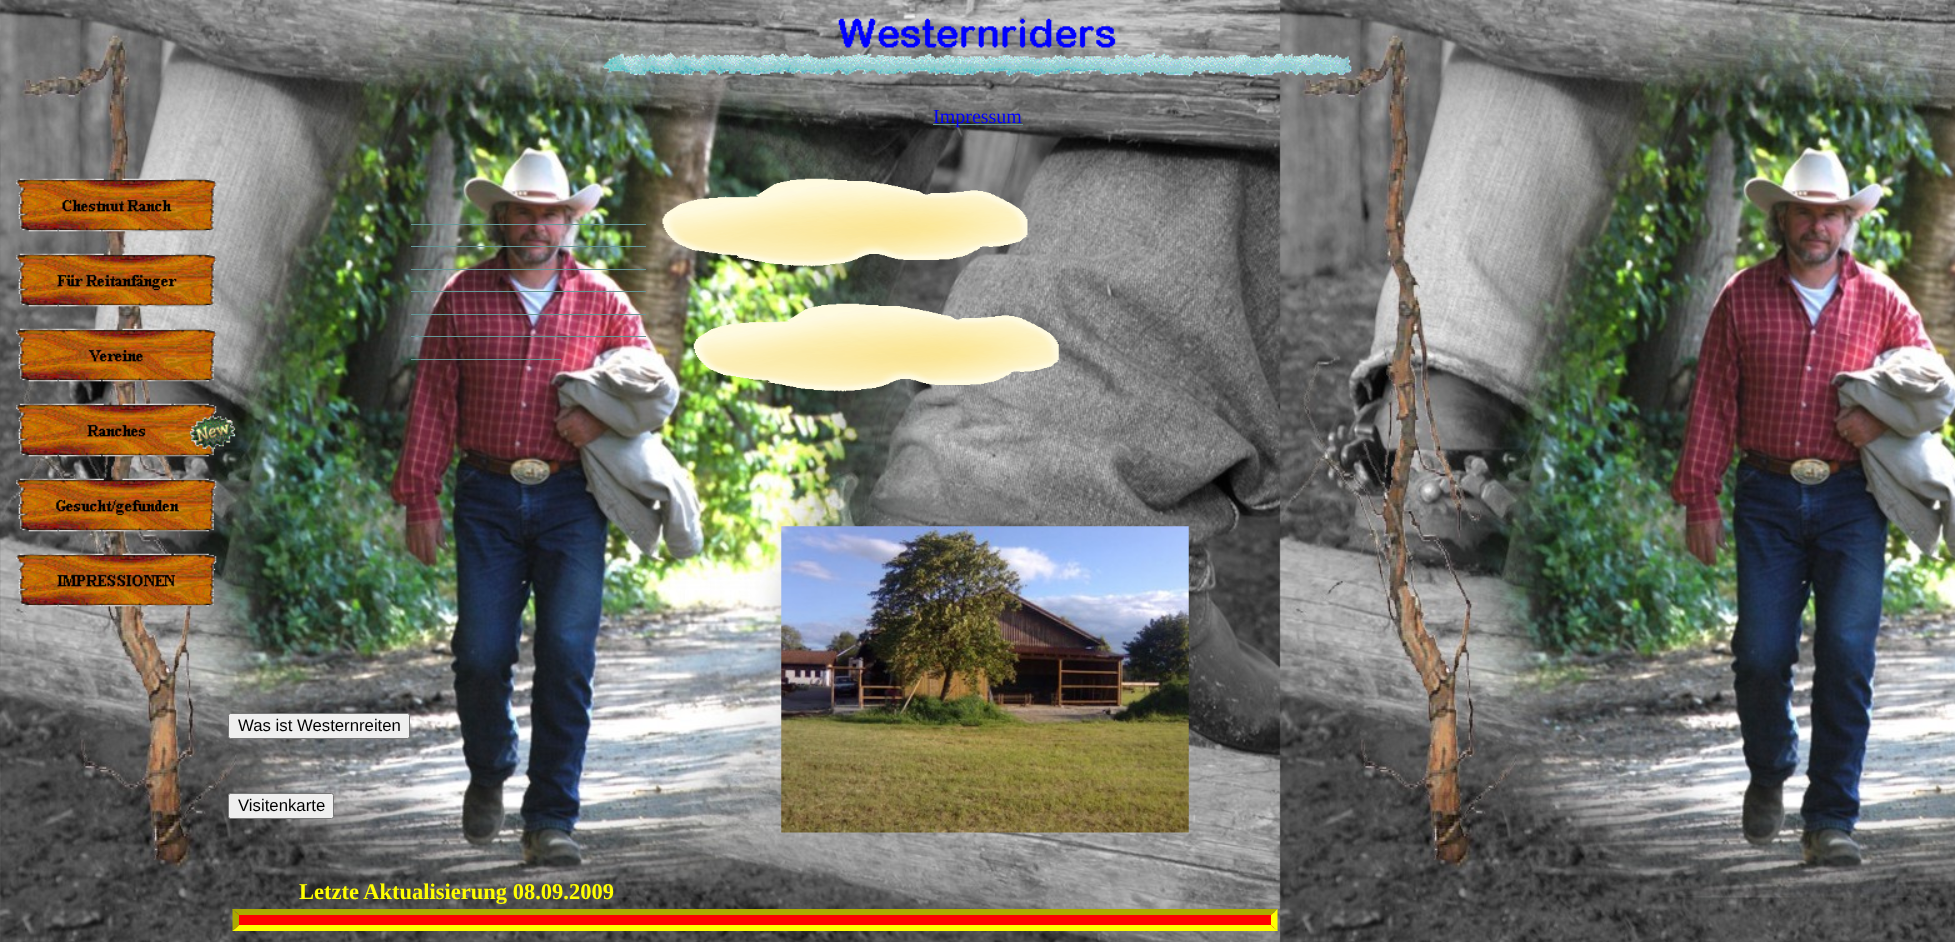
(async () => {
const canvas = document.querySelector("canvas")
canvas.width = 1955
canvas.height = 942
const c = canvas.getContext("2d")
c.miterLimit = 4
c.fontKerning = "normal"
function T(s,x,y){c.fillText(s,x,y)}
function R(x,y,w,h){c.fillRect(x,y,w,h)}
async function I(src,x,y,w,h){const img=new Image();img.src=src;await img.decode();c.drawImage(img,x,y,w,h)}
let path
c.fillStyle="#fff"
R(0,0,1955,942)
await I("1.png",0,0,1955,942)
await I("2.png",602,18,750,59)
c.fillStyle="#699"
R(933,124,90,1)
c.font="20px Liberation Serif"
c.fillStyle="#00f"
T("Impressum",933,123)
await I("3.png",16,178,201,54)
await I("4.png",16,253,201,54)
await I("5.png",16,328,201,54)
await I("6.png",16,403,201,54)
await I("7.png",16,478,201,54)
await I("8.png",16,553,201,54)
c.fillStyle="#699"
R(411,224,235,1)
R(411,246,235,1)
R(411,269,235,1)
R(411,291,235,1)
R(411,314,235,1)
R(411,336,235,1)
R(411,359,150,1)
c.fillStyle="#efefef"
c.beginPath()
c.roundRect(228.5,713.5,181,25,2)
c.fill()
c.strokeStyle="#767676"
c.stroke()
c.font="16.75px Liberation Sans"
c.fillStyle="#000"
T("Was ist Westernreiten",238,731)
await I("9.png",662,178,366,89)
await I("10.png",693,303,366,89)
c.fillStyle="#efefef"
c.beginPath()
c.roundRect(228.5,793.5,105,25,2)
c.fill()
c.stroke()
c.fillStyle="#000"
T("Visitenkarte",238,811)
c.fillStyle="#aa0"
path = new Path2D("M232 909h1046l-4 3h-1038z")
c.fill(path)
c.fillStyle="#ff0"
path = new Path2D("M1277.5 909v22l-3.5-3.5v-15z")
c.fill(path)
path = new Path2D("M1278 931h-1046l4-3h1038z")
c.fill(path)
c.fillStyle="#aa0"
path = new Path2D("M232.5 931v-22l3.5 3.5v15z")
c.fill(path)
c.fillStyle="#f00"
R(236,913,1038,15)
c.fillStyle="#aa0"
path = new Path2D("M236 912h1038l-3 3h-1032z")
c.fill(path)
c.fillStyle="#ff0"
path = new Path2D("M1274 912.5v15l-3-2.5v-10z")
c.fill(path)
path = new Path2D("M1274 928h-1038l3-3h1032z")
c.fill(path)
c.fillStyle="#aa0"
path = new Path2D("M236 927.5v-15l3 2.5v10z")
c.fill(path)
await I("11.png",189,416,47,33)
await I("12.png",781,526,408,307)
c.font="bold 22.5px Liberation Serif"
c.fillStyle="#ff0"
T("Letzte Aktualisierung 08.09.2009",299,899)
})()
